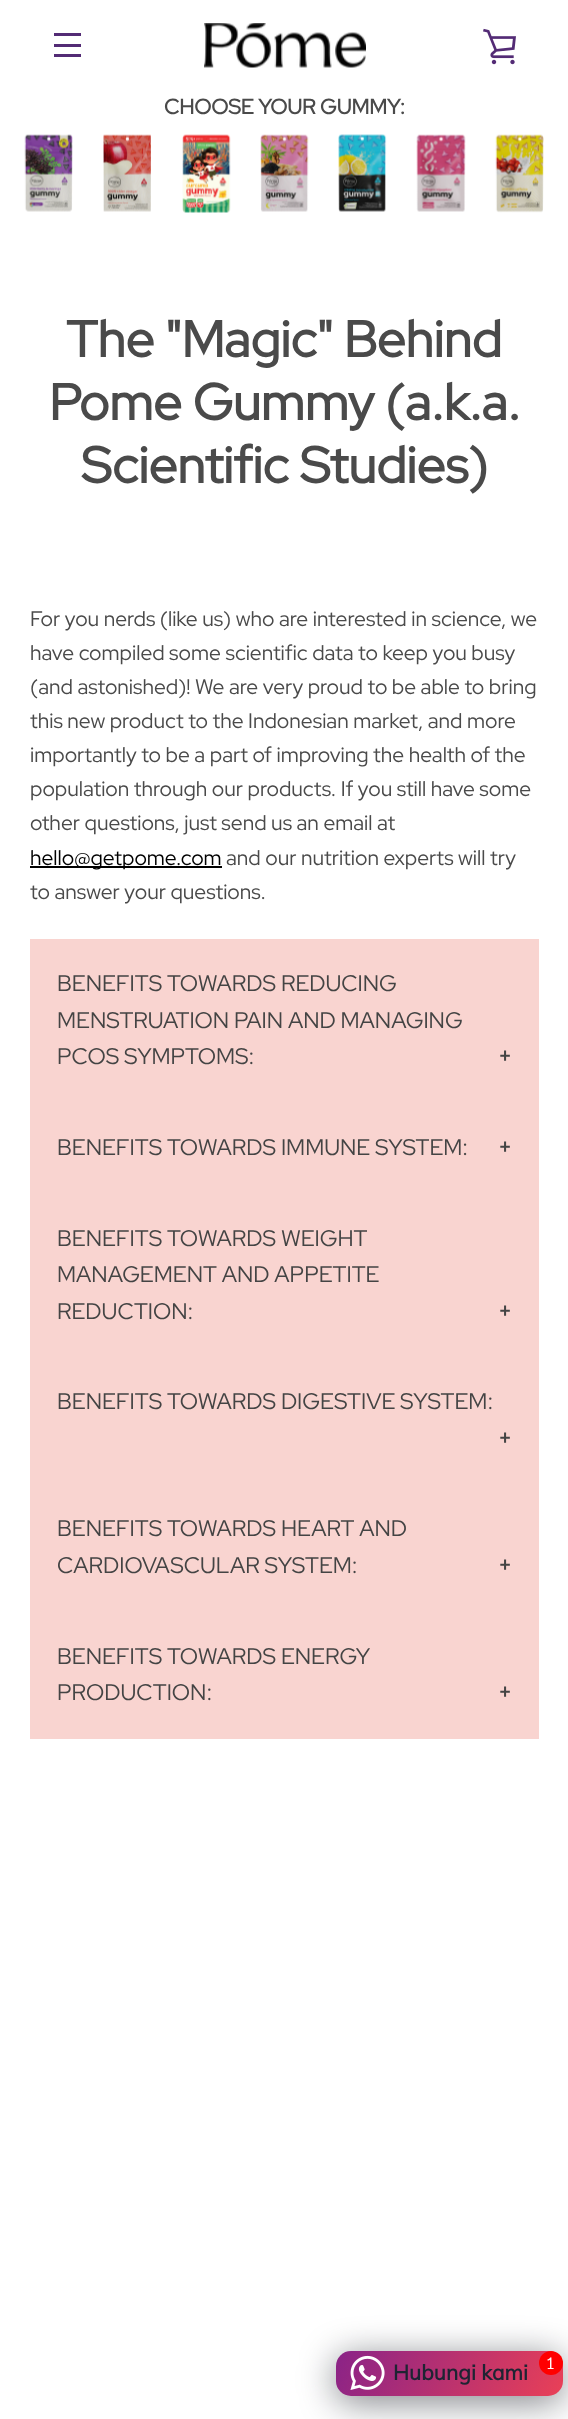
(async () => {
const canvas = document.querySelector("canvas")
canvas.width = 568
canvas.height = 2419
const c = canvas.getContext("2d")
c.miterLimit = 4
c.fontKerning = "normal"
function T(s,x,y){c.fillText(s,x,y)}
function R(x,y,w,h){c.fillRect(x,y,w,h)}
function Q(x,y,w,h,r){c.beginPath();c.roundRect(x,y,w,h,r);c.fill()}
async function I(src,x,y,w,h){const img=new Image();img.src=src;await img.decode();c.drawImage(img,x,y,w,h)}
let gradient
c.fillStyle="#fff"
R(0,0,568,2419)
c.fillStyle="#532b75"
R(54,33,27,3)
R(54,44,27,3)
R(54,54,27,3)
await I("1.png",204,23,162,45)
await I("2.png",483,28,33,37)
c.font="bold 21px Red Hat Display"
c.fillStyle="#4a4a4a"
T("CHOOSE YOUR GUMMY:",164,114)
await I("3.png",24,134,49,78)
await I("4.png",103,134,48,78)
await I("5.png",182,134,49,79)
await I("6.png",260,134,49,78)
await I("7.png",338,134,49,78)
await I("8.png",416,134,50,78)
await I("9.png",495,134,49,79)
c.font="bold 51px Red Hat Display"
T("The \"Magic\" Behind",66,357)
T("Pome Gummy (a.k.a.",49,420)
T("Scientific Studies)",81,483)
c.font="21px Red Hat Display"
T("For you nerds (like us) who are interested in science, we",30,626)
T("have compiled some scientific data to keep you busy",30,660)
T("(and astonished)! We are very proud to be able to bring",30,694)
T("this new product to the Indonesian market, and more",30,728)
T("importantly to be a part of improving the health of the",30,762)
T("population through our products. If you still have some",30,796)
T("other questions, just send us an email at",30,830)
c.fillStyle="#000"
T("hello@getpome.com",30,865)
R(30,866,192,2)
c.fillStyle="#4a4a4a"
T("and our nutrition experts will try",226,865)
T("to answer your questions.",30,899)
c.fillStyle="#f9d4d0"
R(30,939,509,800)
c.font="22.5px Red Hat Display"
c.fillStyle="#444"
T("BENEFITS TOWARDS REDUCING",57,991)
T("MENSTRUATION PAIN AND MANAGING",57,1028)
T("PCOS SYMPTOMS:",57,1064)
c.font="bold 22.5px Red Hat Display"
T("+",498,1064)
c.font="22.5px Red Hat Display"
T("BENEFITS TOWARDS IMMUNE SYSTEM:",57,1155)
c.font="bold 22.5px Red Hat Display"
T("+",498,1155)
c.font="22.5px Red Hat Display"
T("BENEFITS TOWARDS WEIGHT",57,1246)
T("MANAGEMENT AND APPETITE",57,1282)
T("REDUCTION:",57,1319)
c.font="bold 22.5px Red Hat Display"
T("+",498,1319)
c.font="22.5px Red Hat Display"
T("BENEFITS TOWARDS DIGESTIVE SYSTEM:",57,1409)
c.font="bold 22.5px Red Hat Display"
T("+",498,1446)
c.font="22.5px Red Hat Display"
T("BENEFITS TOWARDS HEART AND",57,1536)
T("CARDIOVASCULAR SYSTEM:",57,1573)
c.font="bold 22.5px Red Hat Display"
T("+",498,1573)
c.font="22.5px Red Hat Display"
T("BENEFITS TOWARDS ENERGY",57,1664)
T("PRODUCTION:",57,1700)
c.font="bold 22.5px Red Hat Display"
T("+",498,1700)
c.fillStyle="#02061080"
c.filter="blur(18px)"
c.beginPath()
c.roundRect(336,2357,227,45,15)
c.fill()
c.filter="none"
gradient = c.createLinearGradient(348,2326,551,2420)
gradient.addColorStop(0,"#8a2387")
gradient.addColorStop(1,"#e94057")
c.fillStyle = gradient
Q(336,2351,227,45,15)
await I("10.png",350,2355,35,35)
c.font="bold 21px Muli"
c.fillStyle="#1e2433"
T("Hubungi kami",393,2380)
c.fillStyle="#f00"
c.beginPath()
c.arc(551,2363,12,0,7)
c.fill()
c.font="16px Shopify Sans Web"
c.fillStyle="#fff"
T("1",547,2369)
})()
